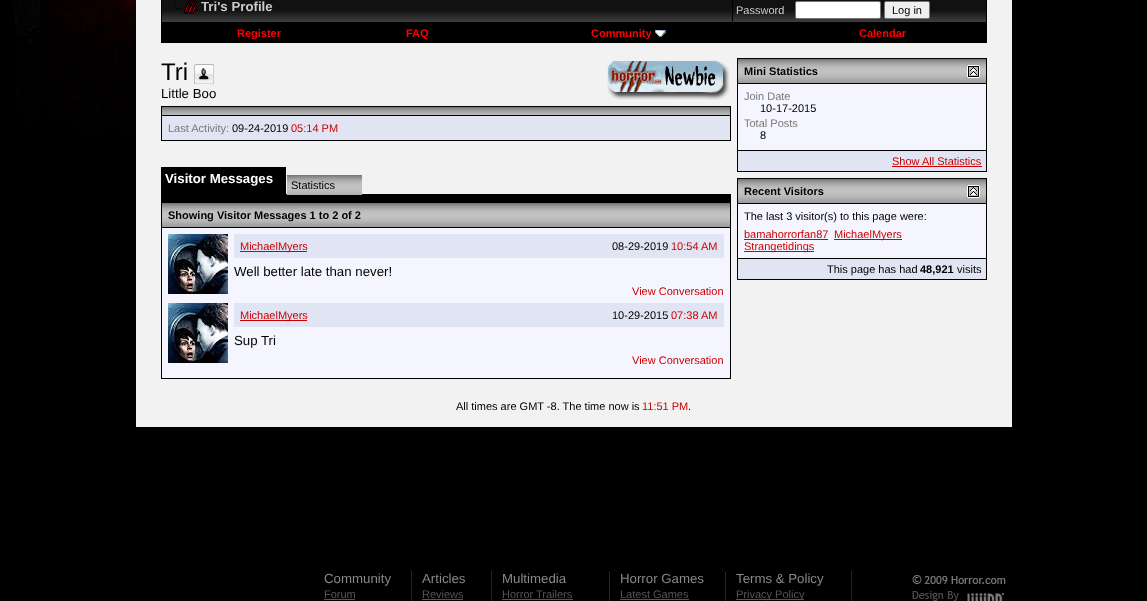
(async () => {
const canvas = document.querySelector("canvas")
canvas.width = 1147
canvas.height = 601
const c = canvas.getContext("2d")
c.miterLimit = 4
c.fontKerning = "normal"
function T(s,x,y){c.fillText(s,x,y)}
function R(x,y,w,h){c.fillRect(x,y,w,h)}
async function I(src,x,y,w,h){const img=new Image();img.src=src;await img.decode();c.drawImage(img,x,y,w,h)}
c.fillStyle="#000"
R(0,0,1147,601)
await I("1.png",14,0,122,134)
c.fillStyle="#f2f2f2"
R(136,0,876,427)
c.fillStyle="#000"
R(161,0,826,43)
c.fillStyle="#111"
R(162,0,570,11)
await I("2.png",162,11,570,11)
await I("3.png",174,0,23,14)
c.font="bold 13.25px Liberation Sans"
c.fillStyle="#ccc"
T("Tri's Profile",201,11)
c.fillStyle="#111"
R(733,0,253,11)
await I("4.png",733,11,253,11)
c.font="11px Liberation Sans"
c.fillStyle="#ccc"
T("Password",736,14)
c.fillStyle="#fff"
c.beginPath()
c.roundRect(795.5,1.5,85,17,1.5)
c.fill()
c.strokeStyle="#767676"
c.stroke()
c.fillStyle="#efefef"
c.beginPath()
c.roundRect(884.5,1.5,45,17,1.5)
c.fill()
c.stroke()
c.fillStyle="#000"
T("Log in",892,14)
c.font="bold 11px Liberation Sans"
c.fillStyle="#f00"
T("Register",237,37)
T("FAQ",406,37)
T("Community",591,37)
await I("5.png",655,30,11,7)
T("Calendar",859,37)
c.font="24px Liberation Sans"
c.fillStyle="#000"
T("Tri",161,80)
await I("6.png",194,64,20,20)
await I("7.png",607,60,123,40)
c.font="13.25px Liberation Sans"
T("Little Boo",161,98)
R(161,106,570,35)
await I("8.png",162,107,568,8)
c.fillStyle="#e1e4f2"
R(162,116,568,24)
c.font="11px Liberation Sans"
c.fillStyle="#777"
T("Last Activity:",168,132)
c.fillStyle="#000"
T("09-24-2019",232,132)
c.fillStyle="#c00"
T("05:14 PM",291,132)
c.fillStyle="#000"
R(161,167,125,27)
c.font="bold 13.25px Liberation Sans"
c.fillStyle="#fff"
T("Visitor Messages",165,183)
c.fillStyle="#000"
R(161,194,570,185)
await I("9.png",287,175,75,20)
c.font="11px Liberation Sans"
T("Statistics",291,189)
await I("10.png",162,203,568,24)
c.font="bold 11px Liberation Sans"
T("Showing Visitor Messages 1 to 2 of 2",168,219)
c.fillStyle="#f5f5ff"
R(162,228,568,150)
await I("11.png",168,234,60,60)
c.fillStyle="#e1e4f2"
R(234,234,490,24)
c.fillStyle="#c00"
R(240,251,67,1)
c.font="11px Liberation Sans"
T("MichaelMyers",240,250)
c.fillStyle="#000"
T("08-29-2019",612,250)
c.fillStyle="#c00"
T("10:54 AM",671,250)
c.font="13.25px Liberation Sans"
c.fillStyle="#000"
T("Well better late than never!",234,276)
c.font="11px Liberation Sans"
c.fillStyle="#c00"
T("View Conversation",632,295)
await I("11.png",168,303,60,60)
c.fillStyle="#e1e4f2"
R(234,303,490,24)
c.fillStyle="#c00"
R(240,320,67,1)
T("MichaelMyers",240,319)
c.fillStyle="#000"
T("10-29-2015",612,319)
c.fillStyle="#c00"
T("07:38 AM",671,319)
c.font="13.25px Liberation Sans"
c.fillStyle="#000"
T("Sup Tri",234,345)
c.font="11px Liberation Sans"
c.fillStyle="#c00"
T("View Conversation",632,364)
c.fillStyle="#000"
R(737,58,250,114)
await I("12.png",738,59,248,24)
c.font="bold 11px Liberation Sans"
T("Mini Statistics",744,75)
await I("13.png",967,65,13,13)
c.fillStyle="#f5f5ff"
R(738,84,248,66)
c.font="11px Liberation Sans"
c.fillStyle="#777"
T("Join Date",744,100)
c.fillStyle="#000"
T("10-17-2015",760,112)
c.fillStyle="#777"
T("Total Posts",744,127)
c.fillStyle="#000"
T("8",760,139)
c.fillStyle="#e1e4f2"
R(738,151,248,20)
c.fillStyle="#c00"
T("Show All Statistics",892,165)
R(892,166,90,1)
c.fillStyle="#000"
R(737,178,250,102)
await I("12.png",738,179,248,24)
c.font="bold 11px Liberation Sans"
T("Recent Visitors",744,195)
await I("13.png",967,185,13,13)
c.fillStyle="#f5f5ff"
R(738,204,248,54)
c.font="11px Liberation Sans"
c.fillStyle="#000"
T("The last 3 visitor(s) to this page were:",744,220)
c.fillStyle="#c00"
T("bamahorrorfan87",744,238)
R(744,239,84,1)
R(834,239,68,1)
T("MichaelMyers",834,238)
R(744,251,70,1)
T("Strangetidings",744,250)
c.fillStyle="#e1e4f2"
R(738,259,248,20)
c.fillStyle="#000"
T("This page has had",827,273)
c.font="bold 11px Liberation Sans"
T("48,921",920,273)
c.font="11px Liberation Sans"
T("visits",957,273)
T("All times are GMT -8. The time now is",456,410)
c.fillStyle="#c00"
T("11:51 PM",642,410)
c.fillStyle="#000"
T(".",688,410)
await I("14.png",410,570,313,1)
c.fillStyle="#252525"
R(411,571,1,30)
c.font="13.25px Liberation Sans"
c.fillStyle="#888"
T("Community",324,583)
c.font="11px Liberation Sans"
c.fillStyle="#555"
T("Forum",324,598)
R(324,599,31,1)
c.fillStyle="#252525"
R(491,571,1,30)
c.font="13.25px Liberation Sans"
c.fillStyle="#888"
T("Articles",422,583)
c.font="11px Liberation Sans"
c.fillStyle="#555"
T("Reviews",422,598)
R(422,599,41,1)
c.fillStyle="#252525"
R(609,571,1,30)
c.font="13.25px Liberation Sans"
c.fillStyle="#888"
T("Multimedia",502,583)
c.font="11px Liberation Sans"
c.fillStyle="#555"
T("Horror Trailers",502,598)
R(502,599,71,1)
c.fillStyle="#252525"
R(725,571,1,30)
c.font="13.25px Liberation Sans"
c.fillStyle="#888"
T("Horror Games",620,583)
c.font="11px Liberation Sans"
c.fillStyle="#555"
T("Latest Games",620,598)
R(620,599,69,1)
c.fillStyle="#252525"
R(851,571,1,30)
c.font="13.25px Liberation Sans"
c.fillStyle="#888"
T("Terms & Policy",736,583)
c.fillStyle="#555"
R(736,599,68,1)
c.font="11px Liberation Sans"
T("Privacy Policy",736,598)
await I("15.png",912,575,94,26)
})()
